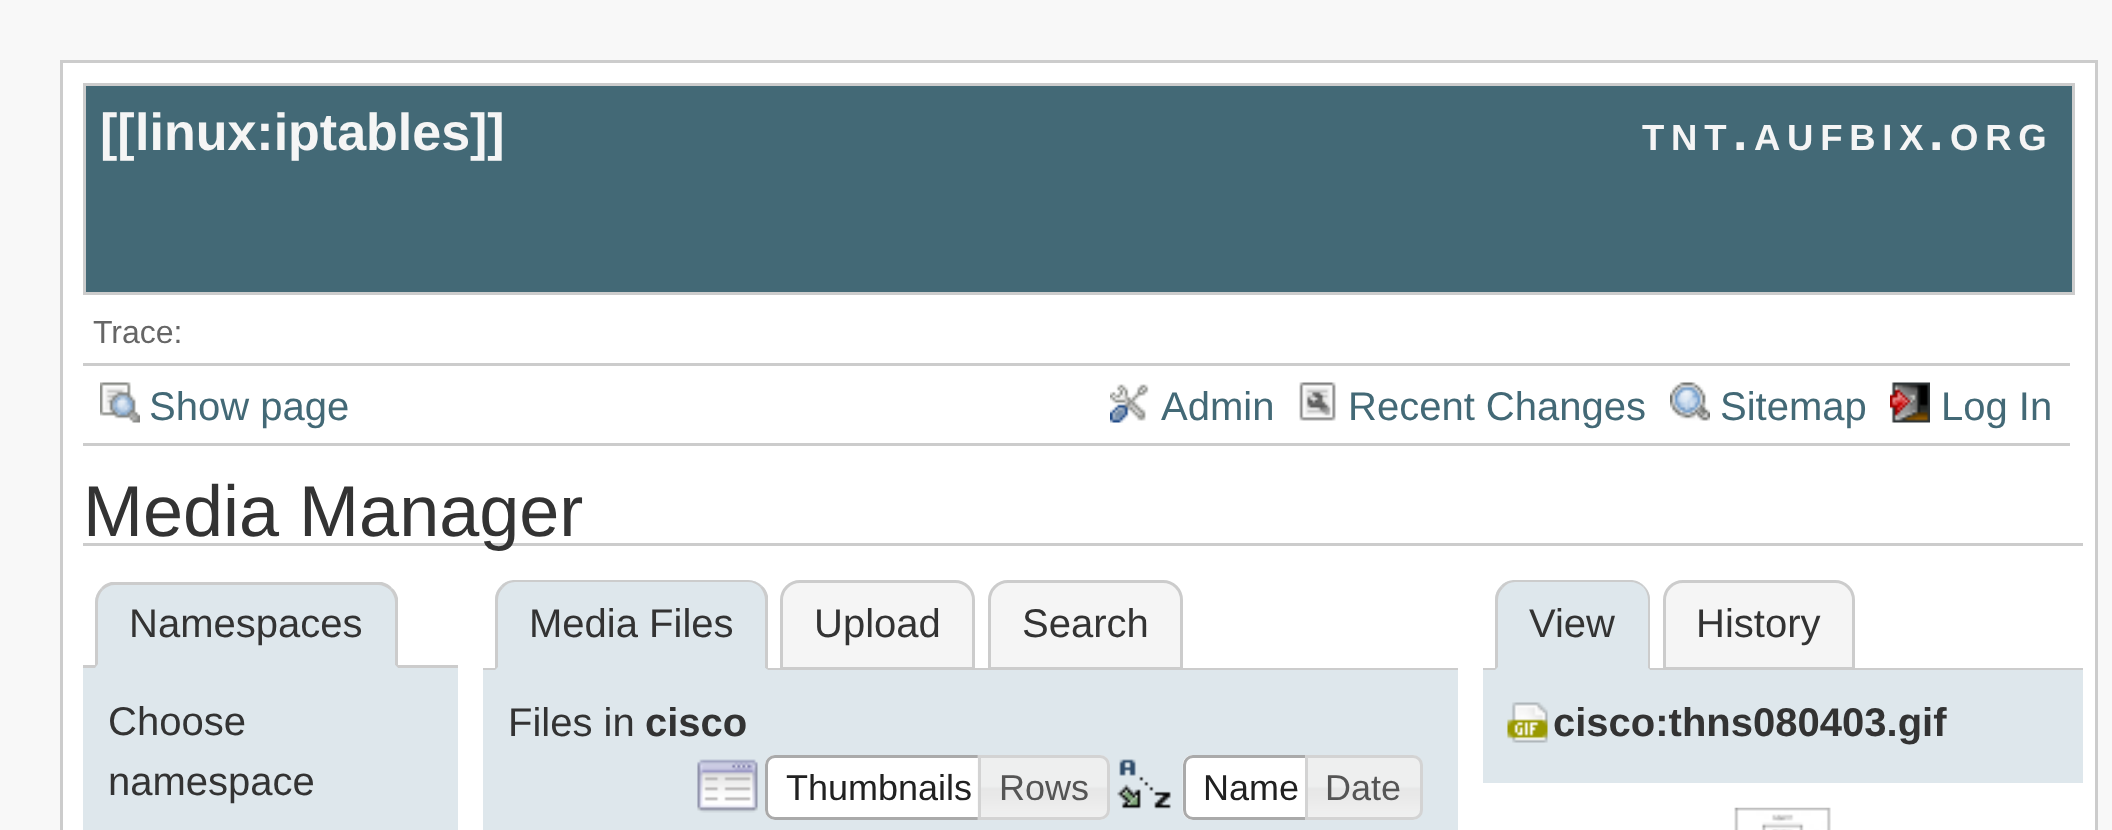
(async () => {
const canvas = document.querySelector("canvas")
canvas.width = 2112
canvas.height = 830
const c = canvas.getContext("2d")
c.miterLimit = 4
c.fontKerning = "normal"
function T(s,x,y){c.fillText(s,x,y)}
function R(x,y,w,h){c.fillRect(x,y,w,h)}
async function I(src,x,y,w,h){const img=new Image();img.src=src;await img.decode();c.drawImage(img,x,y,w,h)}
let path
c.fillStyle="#f8f8f8"
R(0,0,2112,830)
c.fillStyle="#fff"
c.beginPath()
c.rect(61.5,61.5,2035,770)
c.fill()
c.strokeStyle="#ccc"
c.lineWidth=3
c.stroke()
c.fillStyle="#436976"
c.beginPath()
c.rect(84.5,84.5,1989,209)
c.fill()
c.stroke()
c.font="bold 52px Liberation Sans"
c.fillStyle="#f5f5f5"
T("[[",100,150)
T("linux:iptables",135,150)
T("]]",470,150)
c.letterSpacing="6.75px"
c.font="bold 36.5px Liberation Sans"
T("TNT",1642,150)
c.font="bold 52px Liberation Sans"
T(".",1733,150)
c.font="bold 36.5px Liberation Sans"
T("AUFBIX",1754,150)
c.font="bold 52px Liberation Sans"
T(".",1929,150)
c.font="bold 36.5px Liberation Sans"
T("ORG",1950,150)
c.letterSpacing="0px"
c.font="32px Liberation Sans"
c.fillStyle="#666"
T("Trace:",93,343)
c.fillStyle="#ccc"
R(83,363,1987,3)
R(83,443,1987,3)
await I("1.png",100,382,40,41)
c.font="40px Liberation Sans"
c.fillStyle="#436976"
T("Show page",149,420)
await I("2.png",1110,384,39,39)
T("Admin",1161,420)
await I("3.png",1299,382,37,39)
T("Recent Changes",1348,420)
await I("4.png",1670,382,40,39)
T("Sitemap",1720,420)
await I("5.png",1890,382,40,41)
T("Log In",1941,420)
c.fillStyle="#ccc"
R(83,543,2000,3)
c.font="72px Liberation Sans"
c.fillStyle="#333"
T("Media Manager",83,536)
c.fillStyle="#ccc"
R(83,665,375,3)
c.fillStyle="#dee7ec"
c.beginPath()
c.roundRect(95,583,303,85,[20,20,0,0])
c.fill()
c.fillStyle="#ccc"
path = new Path2D("M115 585c-5 0-9 2-12 5l-2-2c2-3 6-5 10-6h271c4 1 8 3 10 6l-2 2c-3-3-8-5-12-5z")
c.fill(path)
path = new Path2D("M392 588c3 2 5 6 6 10v70l-3-3v-63c0-4-2-9-5-12z")
c.fill(path)
c.fillStyle="#dee7ec"
path = new Path2D("M398 668l-3-3h-297v-1l-3 4z")
c.fill(path)
c.fillStyle="#ccc"
path = new Path2D("M95 668l3-4v-62c0-4 2-9 5-12l-2-2c-4 4-6 9-6 14z")
c.fill(path)
c.font="40px Liberation Sans"
c.fillStyle="#333"
T("Namespaces",129,637)
c.fillStyle="#dee7ec"
R(83,668,375,162)
c.fillStyle="#333"
T("Choose",108,735)
T("namespace",108,795)
c.fillStyle="#f5f5f5"
c.beginPath()
c.roundRect(781.5,581.5,192,87,[18.5,18.5,0,0])
c.fill()
c.stroke()
c.beginPath()
c.roundRect(989.5,581.5,192,87,[18.5,18.5,0,0])
c.fill()
c.stroke()
c.fillStyle="#ccc"
R(483,668,975,2)
c.fillStyle="#dee7ec"
c.beginPath()
c.roundRect(495,580,273,90,[20,20,0,0])
c.fill()
c.fillStyle="#ccc"
path = new Path2D("M515 580c-5 0-11 2-14 6l2 2c3-4 7-6 12-6h233c5 0 9 2 12 5l2-1c-4-4-9-6-14-6z")
c.fill(path)
path = new Path2D("M768 596v74l-3-2v-68c0-5-2-9-5-13l2-1c3 2 5 6 6 10z")
c.fill(path)
c.fillStyle="#dee7ec"
path = new Path2D("M768 670l-3-2h-267v-1l-3 3z")
c.fill(path)
c.fillStyle="#ccc"
path = new Path2D("M495 670l3-3v-67c0-5 2-9 5-12l-2-2c-4 4-6 8-6 14z")
c.fill(path)
c.fillStyle="#333"
T("Media Files",529,637)
T("Upload",814,637)
T("Search",1022,637)
c.fillStyle="#dee7ec"
R(483,670,975,160)
c.fillStyle="#333"
T("Files in",508,736)
c.font="bold 40px Liberation Sans"
T("cisco",645,736)
await I("6.png",697,759,61,54)
c.fillStyle="#fff"
c.beginPath()
c.roundRect(765,755,228,65,[10,0,0,10])
c.fill()
await I("7.png",765,755,8,65)
c.beginPath()
c.roundRect(766.5,756.5,225,62,[8.5,0,0,8.5])
c.strokeStyle="#aaa"
c.stroke()
c.font="36px Liberation Sans"
c.fillStyle="#212121"
T("Thumbnails",786,800)
await I("8.png",977,755,133,65)
c.beginPath()
c.roundRect(979.5,756.5,129,62,[0,8.5,8.5,0])
c.strokeStyle="#d3d3d3"
c.stroke()
c.fillStyle="#555"
T("Rows",999,800)
await I("9.png",1117,759,54,50)
c.fillStyle="#fff"
c.beginPath()
c.roundRect(1183,755,137,65,[10,0,0,10])
c.fill()
await I("10.png",1182,755,10,65)
c.beginPath()
c.roundRect(1184.5,756.5,134,62,[8.5,0,0,8.5])
c.strokeStyle="#aaa"
c.stroke()
c.fillStyle="#212121"
T("Name",1203,800)
await I("11.png",1308,755,114,65)
c.beginPath()
c.roundRect(1306.5,756.5,115,62,[0,8.5,8.5,0])
c.strokeStyle="#d3d3d3"
c.stroke()
c.fillStyle="#555"
T("Date",1325,800)
c.fillStyle="#f5f5f5"
c.beginPath()
c.roundRect(1664.5,581.5,189,87,[18.5,18.5,0,0])
c.fill()
c.strokeStyle="#ccc"
c.stroke()
c.fillStyle="#ccc"
R(1483,668,600,2)
c.fillStyle="#dee7ec"
c.beginPath()
c.roundRect(1495,580,155,90,[20,20,0,0])
c.fill()
c.fillStyle="#ccc"
path = new Path2D("M1515 580c-5 0-11 2-14 6l2 2c3-4 7-6 12-6h115c5 0 10 2 13 5l1-1c-4-4-8-6-14-6z")
c.fill(path)
path = new Path2D("M1650 670v-70c0-6-2-10-6-14l-1 1c3 3 5 8 5 13v68z")
c.fill(path)
c.fillStyle="#dee7ec"
path = new Path2D("M1650 670l-2-2h-150v-1l-3 3z")
c.fill(path)
c.fillStyle="#ccc"
path = new Path2D("M1495 670l3-3v-67c0-5 2-9 5-12l-2-2c-4 4-6 8-6 14z")
c.fill(path)
c.font="40px Liberation Sans"
c.fillStyle="#333"
T("View",1529,637)
T("History",1696,637)
c.fillStyle="#dee7ec"
R(1483,670,600,113)
await I("12.png",1507,702,41,41)
c.font="bold 40px Liberation Sans"
c.fillStyle="#333"
T("cisco:thns080403.gif",1553,736)
await I("13.png",1734,807,97,23)
})()
